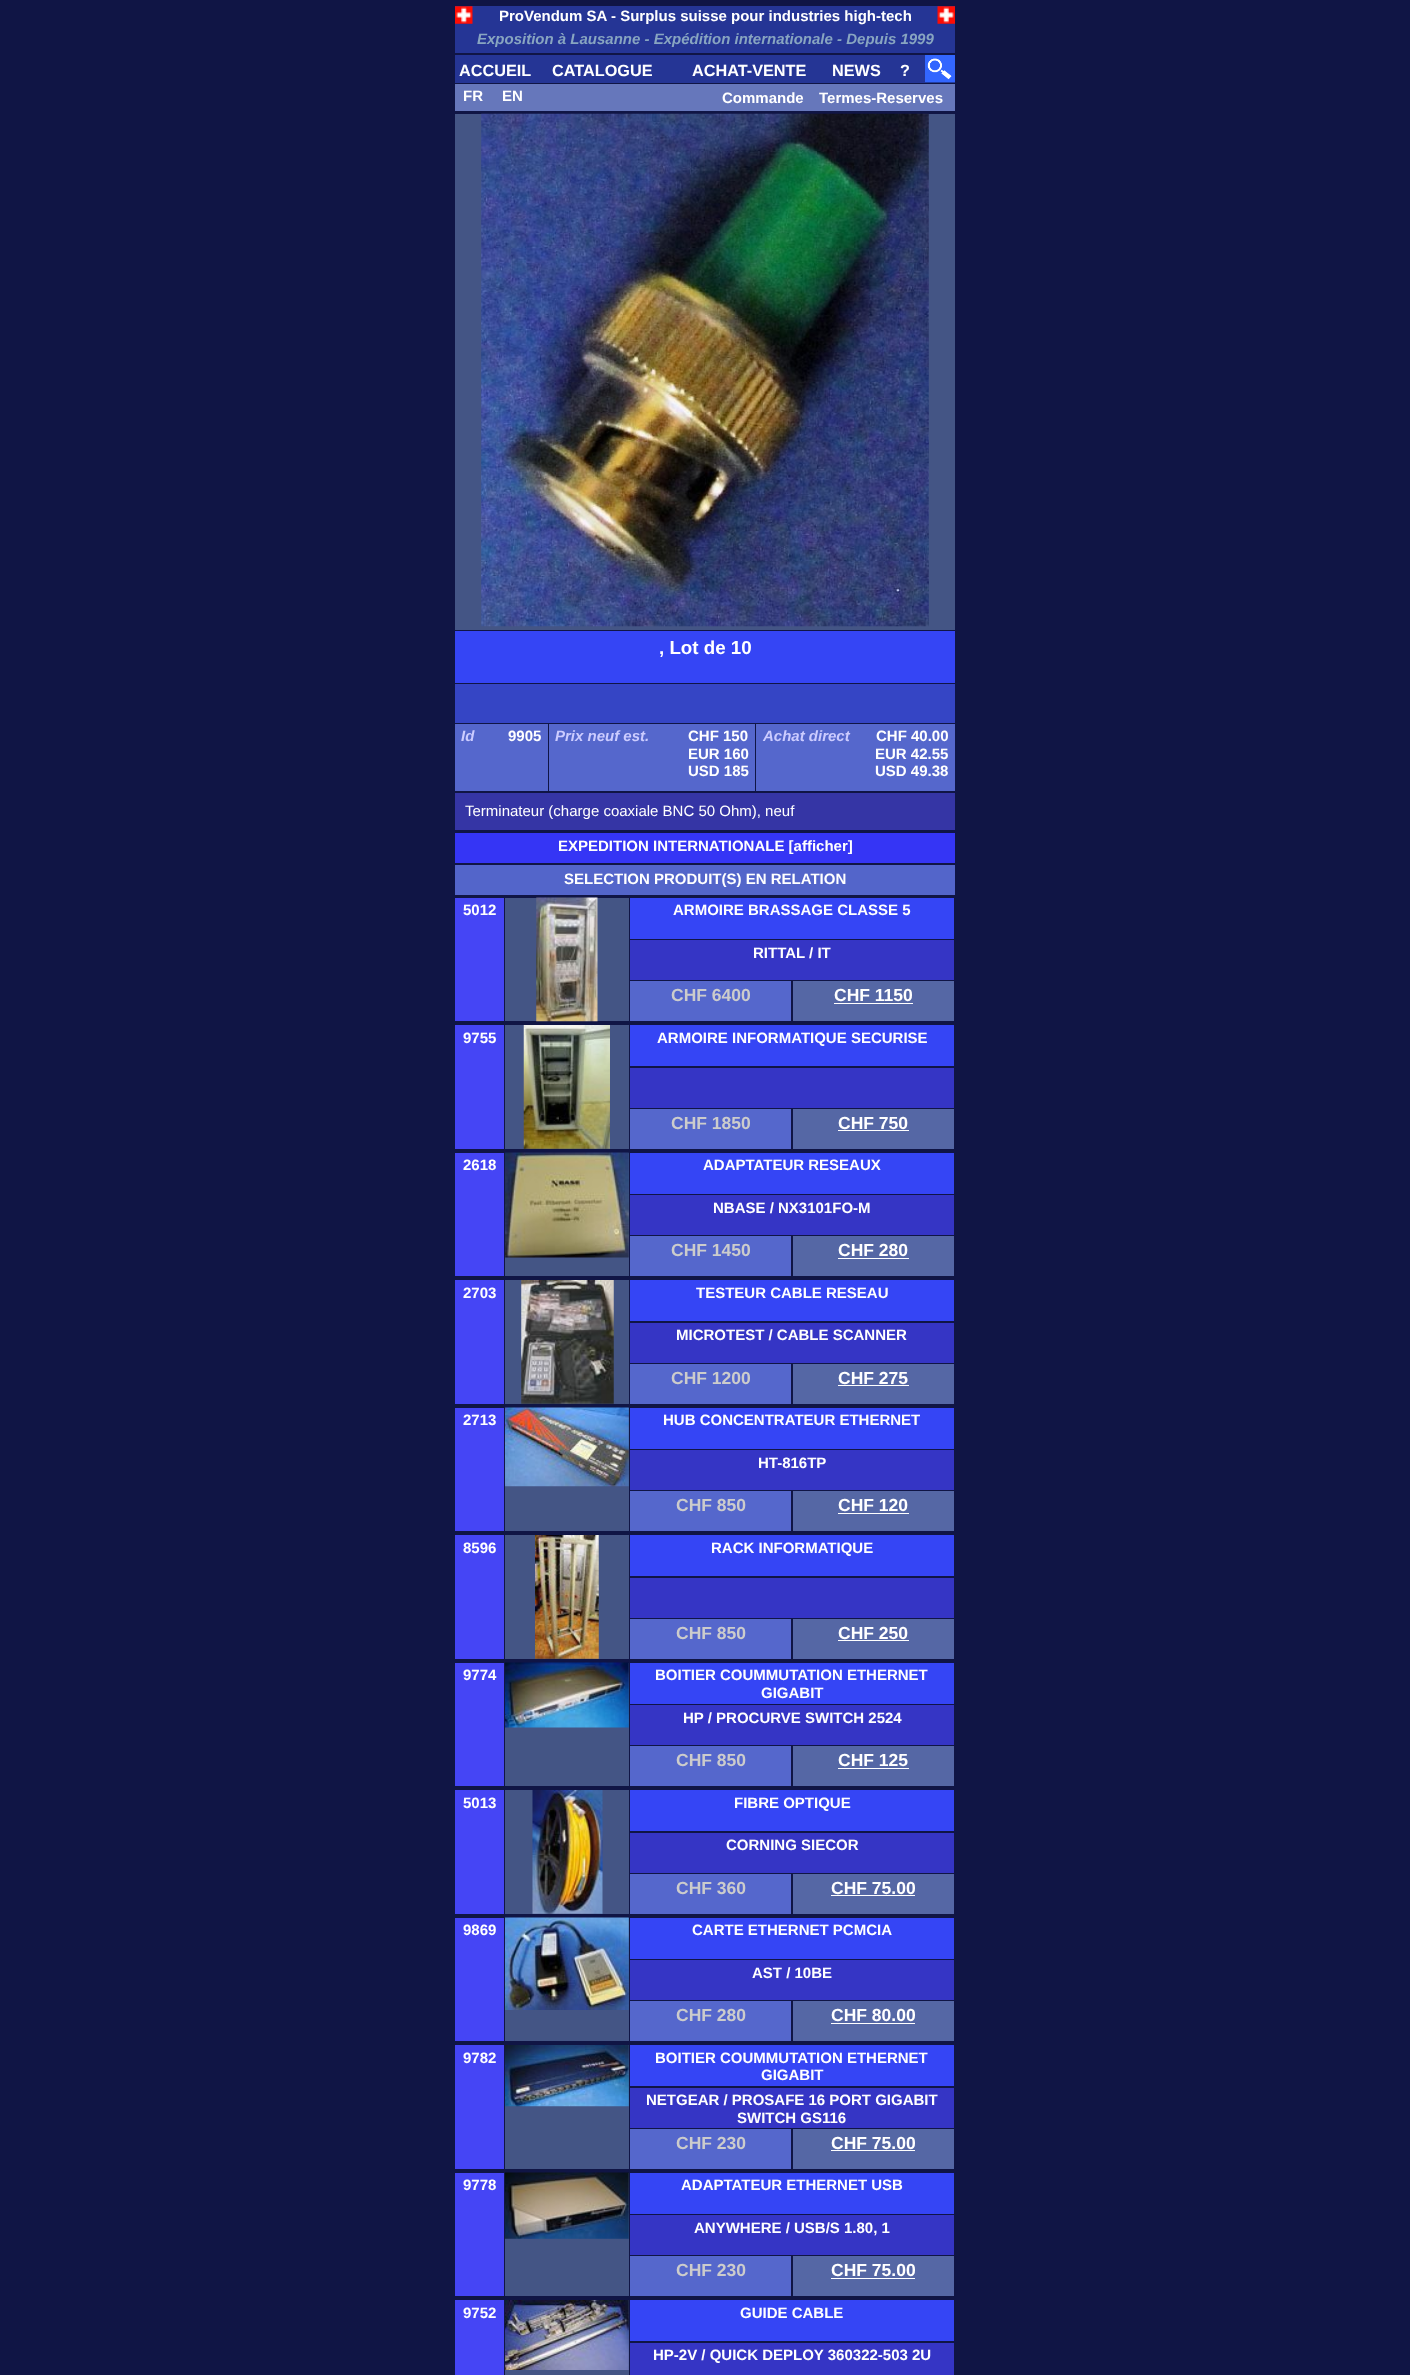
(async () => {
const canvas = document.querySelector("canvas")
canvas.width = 1410
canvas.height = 2375
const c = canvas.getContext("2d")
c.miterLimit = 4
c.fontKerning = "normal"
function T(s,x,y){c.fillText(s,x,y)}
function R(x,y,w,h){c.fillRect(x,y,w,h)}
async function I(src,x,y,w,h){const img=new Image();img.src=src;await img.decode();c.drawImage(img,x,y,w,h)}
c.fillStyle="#101545"
R(0,0,1410,2375)
c.fillStyle="#253595"
R(455,6,500,47)
await I("1.png",455,6,18,18)
c.font="bold 15px Liberation Sans"
c.fillStyle="#fff"
T("ProVendum SA - Surplus suisse pour industries high-tech",499,21)
await I("2.png",937,6,18,18)
c.font="italic bold 15px Liberation Sans"
c.fillStyle="#88a5c1"
T("Exposition à Lausanne - Expédition internationale - Depuis 1999",477,44)
c.fillStyle="#253595"
R(455,55,470,28)
c.font="bold 16.25px Liberation Sans"
c.fillStyle="#fff"
T("ACCUEIL",459,76)
T("CATALOGUE",552,76)
T("ACHAT-VENTE",692,76)
T("NEWS",832,76)
T("?",900,76)
await I("3.png",925,55,30,28)
c.fillStyle="#67b"
R(455,84,500,27)
c.font="bold 15px Liberation Sans"
c.fillStyle="#fff"
T("FR",463,101)
T("EN",502,101)
T("Commande",722,103)
T("Termes-Reserves",819,103)
c.fillStyle="#445585"
R(455,114,500,516)
await I("4.png",481,113,448,514)
c.fillStyle="#3545f5"
R(455,631,500,52)
c.font="bold 18.75px Liberation Sans"
c.fillStyle="#fff"
T(", Lot de 10",659,654)
c.fillStyle="#3545c5"
R(455,684,500,39)
c.fillStyle="#5567cc"
R(455,724,93,67)
c.font="italic bold 15px Liberation Sans"
c.fillStyle="#ccf"
T("Id",461,741)
c.font="bold 15px Liberation Sans"
c.fillStyle="#fff"
T("9905",508,741)
c.fillStyle="#5567cc"
R(549,724,206,67)
c.font="italic bold 15px Liberation Sans"
c.fillStyle="#ccf"
T("Prix neuf est.",555,741)
c.font="bold 15px Liberation Sans"
c.fillStyle="#fff"
T("CHF 150",688,741)
T("EUR 160",688,759)
T("USD 185",688,776)
c.fillStyle="#5567cc"
R(756,724,199,67)
c.font="italic bold 15px Liberation Sans"
c.fillStyle="#ccf"
T("Achat direct",763,741)
c.font="bold 15px Liberation Sans"
c.fillStyle="#fff"
T("CHF 40.00",876,741)
T("EUR 42.55",875,759)
T("USD 49.38",875,776)
c.fillStyle="#3535a5"
R(455,793,500,37)
c.font="15px Liberation Sans"
c.fillStyle="#fff"
T("Terminateur (charge coaxiale BNC 50 Ohm), neuf",465,816)
c.fillStyle="#3535f5"
R(455,833,500,30)
c.font="bold 15px Liberation Sans"
c.fillStyle="#fff"
T("EXPEDITION INTERNATIONALE [afficher]",558,851)
c.fillStyle="#5365ca"
R(455,865,500,30)
c.fillStyle="#fff"
T("SELECTION PRODUIT(S) EN RELATION",564,884)
c.fillStyle="#4545f5"
R(455,898,49,123)
c.fillStyle="#fff"
T("5012",463,915)
c.fillStyle="#445585"
R(505,898,124,123)
await I("5.png",536,897,62,125)
c.fillStyle="#3545f5"
R(630,898,324,41)
c.fillStyle="#fff"
T("ARMOIRE BRASSAGE CLASSE 5",673,915)
c.fillStyle="#3535c5"
R(630,940,324,40)
c.fillStyle="#fff"
T("RITTAL / IT",753,958)
c.fillStyle="#5567cc"
R(630,981,161,40)
c.font="bold 17.5px Liberation Sans"
c.fillStyle="#ccc"
T("CHF 6400",671,1001)
c.fillStyle="#5567a5"
R(793,981,161,40)
c.fillStyle="#fff"
T("CHF 1150",834,1001)
R(834,1003,79,1)
c.fillStyle="#4545f5"
R(455,1025,49,124)
c.font="bold 15px Liberation Sans"
c.fillStyle="#fff"
T("9755",463,1043)
c.fillStyle="#445585"
R(505,1025,124,124)
await I("6.png",523,1025,87,124)
c.fillStyle="#3545f5"
R(630,1025,324,41)
c.fillStyle="#fff"
T("ARMOIRE INFORMATIQUE SECURISE",657,1043)
c.fillStyle="#3535c5"
R(630,1068,324,40)
c.fillStyle="#5567cc"
R(630,1109,161,40)
c.font="bold 17.5px Liberation Sans"
c.fillStyle="#ccc"
T("CHF 1850",671,1129)
c.fillStyle="#5567a5"
R(793,1109,161,40)
c.fillStyle="#fff"
T("CHF 750",838,1129)
R(838,1130,71,1)
c.fillStyle="#4545f5"
R(455,1153,49,123)
c.font="bold 15px Liberation Sans"
c.fillStyle="#fff"
T("2618",463,1170)
c.fillStyle="#445585"
R(505,1153,124,123)
await I("7.png",505,1152,124,106)
c.fillStyle="#3545f5"
R(630,1153,324,41)
c.fillStyle="#fff"
T("ADAPTATEUR RESEAUX",703,1170)
c.fillStyle="#3535c5"
R(630,1195,324,40)
c.fillStyle="#fff"
T("NBASE / NX3101FO-M",713,1213)
c.fillStyle="#5567cc"
R(630,1236,161,40)
c.font="bold 17.5px Liberation Sans"
c.fillStyle="#ccc"
T("CHF 1450",671,1256)
c.fillStyle="#5567a5"
R(793,1236,161,40)
c.fillStyle="#fff"
T("CHF 280",838,1256)
R(838,1258,71,1)
c.fillStyle="#4545f5"
R(455,1280,49,124)
c.font="bold 15px Liberation Sans"
c.fillStyle="#fff"
T("2703",463,1298)
c.fillStyle="#445585"
R(505,1280,124,124)
await I("8.png",521,1280,93,124)
c.fillStyle="#3545f5"
R(630,1280,324,41)
c.fillStyle="#fff"
T("TESTEUR CABLE RESEAU",696,1298)
c.fillStyle="#3535c5"
R(630,1323,324,40)
c.fillStyle="#fff"
T("MICROTEST / CABLE SCANNER",676,1340)
c.fillStyle="#5567cc"
R(630,1364,161,40)
c.font="bold 17.5px Liberation Sans"
c.fillStyle="#ccc"
T("CHF 1200",671,1384)
c.fillStyle="#5567a5"
R(793,1364,161,40)
c.fillStyle="#fff"
T("CHF 275",838,1384)
R(838,1385,71,1)
c.fillStyle="#4545f5"
R(455,1408,49,123)
c.font="bold 15px Liberation Sans"
c.fillStyle="#fff"
T("2713",463,1425)
c.fillStyle="#445585"
R(505,1408,124,123)
await I("9.png",505,1407,124,80)
c.fillStyle="#3545f5"
R(630,1408,324,41)
c.fillStyle="#fff"
T("HUB CONCENTRATEUR ETHERNET",663,1425)
c.fillStyle="#3535c5"
R(630,1450,324,40)
c.fillStyle="#fff"
T("HT-816TP",758,1468)
c.fillStyle="#5567cc"
R(630,1491,161,40)
c.font="bold 17.5px Liberation Sans"
c.fillStyle="#ccc"
T("CHF 850",676,1511)
c.fillStyle="#5567a5"
R(793,1491,161,40)
c.fillStyle="#fff"
T("CHF 120",838,1511)
R(838,1513,71,1)
c.fillStyle="#4545f5"
R(455,1535,49,124)
c.font="bold 15px Liberation Sans"
c.fillStyle="#fff"
T("8596",463,1553)
c.fillStyle="#445585"
R(505,1535,124,124)
await I("10.png",535,1535,64,124)
c.fillStyle="#3545f5"
R(630,1535,324,41)
c.fillStyle="#fff"
T("RACK INFORMATIQUE",711,1553)
c.fillStyle="#3535c5"
R(630,1578,324,40)
c.fillStyle="#5567cc"
R(630,1619,161,40)
c.font="bold 17.5px Liberation Sans"
c.fillStyle="#ccc"
T("CHF 850",676,1639)
c.fillStyle="#5567a5"
R(793,1619,161,40)
c.fillStyle="#fff"
T("CHF 250",838,1639)
R(838,1640,71,1)
c.fillStyle="#4545f5"
R(455,1663,49,123)
c.font="bold 15px Liberation Sans"
c.fillStyle="#fff"
T("9774",463,1680)
c.fillStyle="#445585"
R(505,1663,124,123)
await I("11.png",505,1662,124,66)
c.fillStyle="#3545f5"
R(630,1663,324,41)
c.fillStyle="#fff"
T("BOITIER COUMMUTATION ETHERNET",655,1680)
T("GIGABIT",761,1698)
c.fillStyle="#3535c5"
R(630,1705,324,40)
c.fillStyle="#fff"
T("HP / PROCURVE SWITCH 2524",683,1723)
c.fillStyle="#5567cc"
R(630,1746,161,40)
c.font="bold 17.5px Liberation Sans"
c.fillStyle="#ccc"
T("CHF 850",676,1766)
c.fillStyle="#5567a5"
R(793,1746,161,40)
c.fillStyle="#fff"
T("CHF 125",838,1766)
R(838,1768,71,1)
c.fillStyle="#4545f5"
R(455,1790,49,124)
c.font="bold 15px Liberation Sans"
c.fillStyle="#fff"
T("5013",463,1808)
c.fillStyle="#445585"
R(505,1790,124,124)
await I("12.png",532,1790,71,124)
c.fillStyle="#3545f5"
R(630,1790,324,41)
c.fillStyle="#fff"
T("FIBRE OPTIQUE",734,1808)
c.fillStyle="#3535c5"
R(630,1833,324,40)
c.fillStyle="#fff"
T("CORNING SIECOR",726,1850)
c.fillStyle="#5567cc"
R(630,1874,161,40)
c.font="bold 17.5px Liberation Sans"
c.fillStyle="#ccc"
T("CHF 360",676,1894)
c.fillStyle="#5567a5"
R(793,1874,161,40)
c.fillStyle="#fff"
T("CHF 75.00",831,1894)
R(831,1895,84,1)
c.fillStyle="#4545f5"
R(455,1918,49,123)
c.font="bold 15px Liberation Sans"
c.fillStyle="#fff"
T("9869",463,1935)
c.fillStyle="#445585"
R(505,1918,124,123)
await I("13.png",505,1917,124,93)
c.fillStyle="#3545f5"
R(630,1918,324,41)
c.fillStyle="#fff"
T("CARTE ETHERNET PCMCIA",692,1935)
c.fillStyle="#3535c5"
R(630,1960,324,40)
c.fillStyle="#fff"
T("AST / 10BE",752,1978)
c.fillStyle="#5567cc"
R(630,2001,161,40)
c.font="bold 17.5px Liberation Sans"
c.fillStyle="#ccc"
T("CHF 280",676,2021)
c.fillStyle="#5567a5"
R(793,2001,161,40)
c.fillStyle="#fff"
T("CHF 80.00",831,2021)
R(831,2023,84,1)
c.fillStyle="#4545f5"
R(455,2045,49,124)
c.font="bold 15px Liberation Sans"
c.fillStyle="#fff"
T("9782",463,2063)
c.fillStyle="#445585"
R(505,2045,124,124)
await I("14.png",505,2045,124,62)
c.fillStyle="#3545f5"
R(630,2045,324,41)
c.fillStyle="#fff"
T("BOITIER COUMMUTATION ETHERNET",655,2063)
T("GIGABIT",761,2080)
c.fillStyle="#3535c5"
R(630,2088,324,40)
c.fillStyle="#fff"
T("NETGEAR / PROSAFE 16 PORT GIGABIT",646,2105)
T("SWITCH GS116",737,2123)
c.fillStyle="#5567cc"
R(630,2129,161,40)
c.font="bold 17.5px Liberation Sans"
c.fillStyle="#ccc"
T("CHF 230",676,2149)
c.fillStyle="#5567a5"
R(793,2129,161,40)
c.fillStyle="#fff"
T("CHF 75.00",831,2149)
R(831,2150,84,1)
c.fillStyle="#4545f5"
R(455,2173,49,123)
c.font="bold 15px Liberation Sans"
c.fillStyle="#fff"
T("9778",463,2190)
c.fillStyle="#445585"
R(505,2173,124,123)
await I("15.png",505,2172,124,67)
c.fillStyle="#3545f5"
R(630,2173,324,41)
c.fillStyle="#fff"
T("ADAPTATEUR ETHERNET USB",681,2190)
c.fillStyle="#3535c5"
R(630,2215,324,40)
c.fillStyle="#fff"
T("ANYWHERE / USB/S 1.80, 1",694,2233)
c.fillStyle="#5567cc"
R(630,2256,161,40)
c.font="bold 17.5px Liberation Sans"
c.fillStyle="#ccc"
T("CHF 230",676,2276)
c.fillStyle="#5567a5"
R(793,2256,161,40)
c.fillStyle="#fff"
T("CHF 75.00",831,2276)
R(831,2278,84,1)
c.fillStyle="#4545f5"
R(455,2300,49,75)
c.font="bold 15px Liberation Sans"
c.fillStyle="#fff"
T("9752",463,2318)
c.fillStyle="#445585"
R(505,2300,124,75)
await I("16.png",505,2300,124,70)
c.fillStyle="#3545f5"
R(630,2300,324,41)
c.fillStyle="#fff"
T("GUIDE CABLE",740,2318)
c.fillStyle="#3535c5"
R(630,2343,324,32)
c.fillStyle="#fff"
T("HP-2V / QUICK DEPLOY 360322-503 2U",653,2360)
})()
